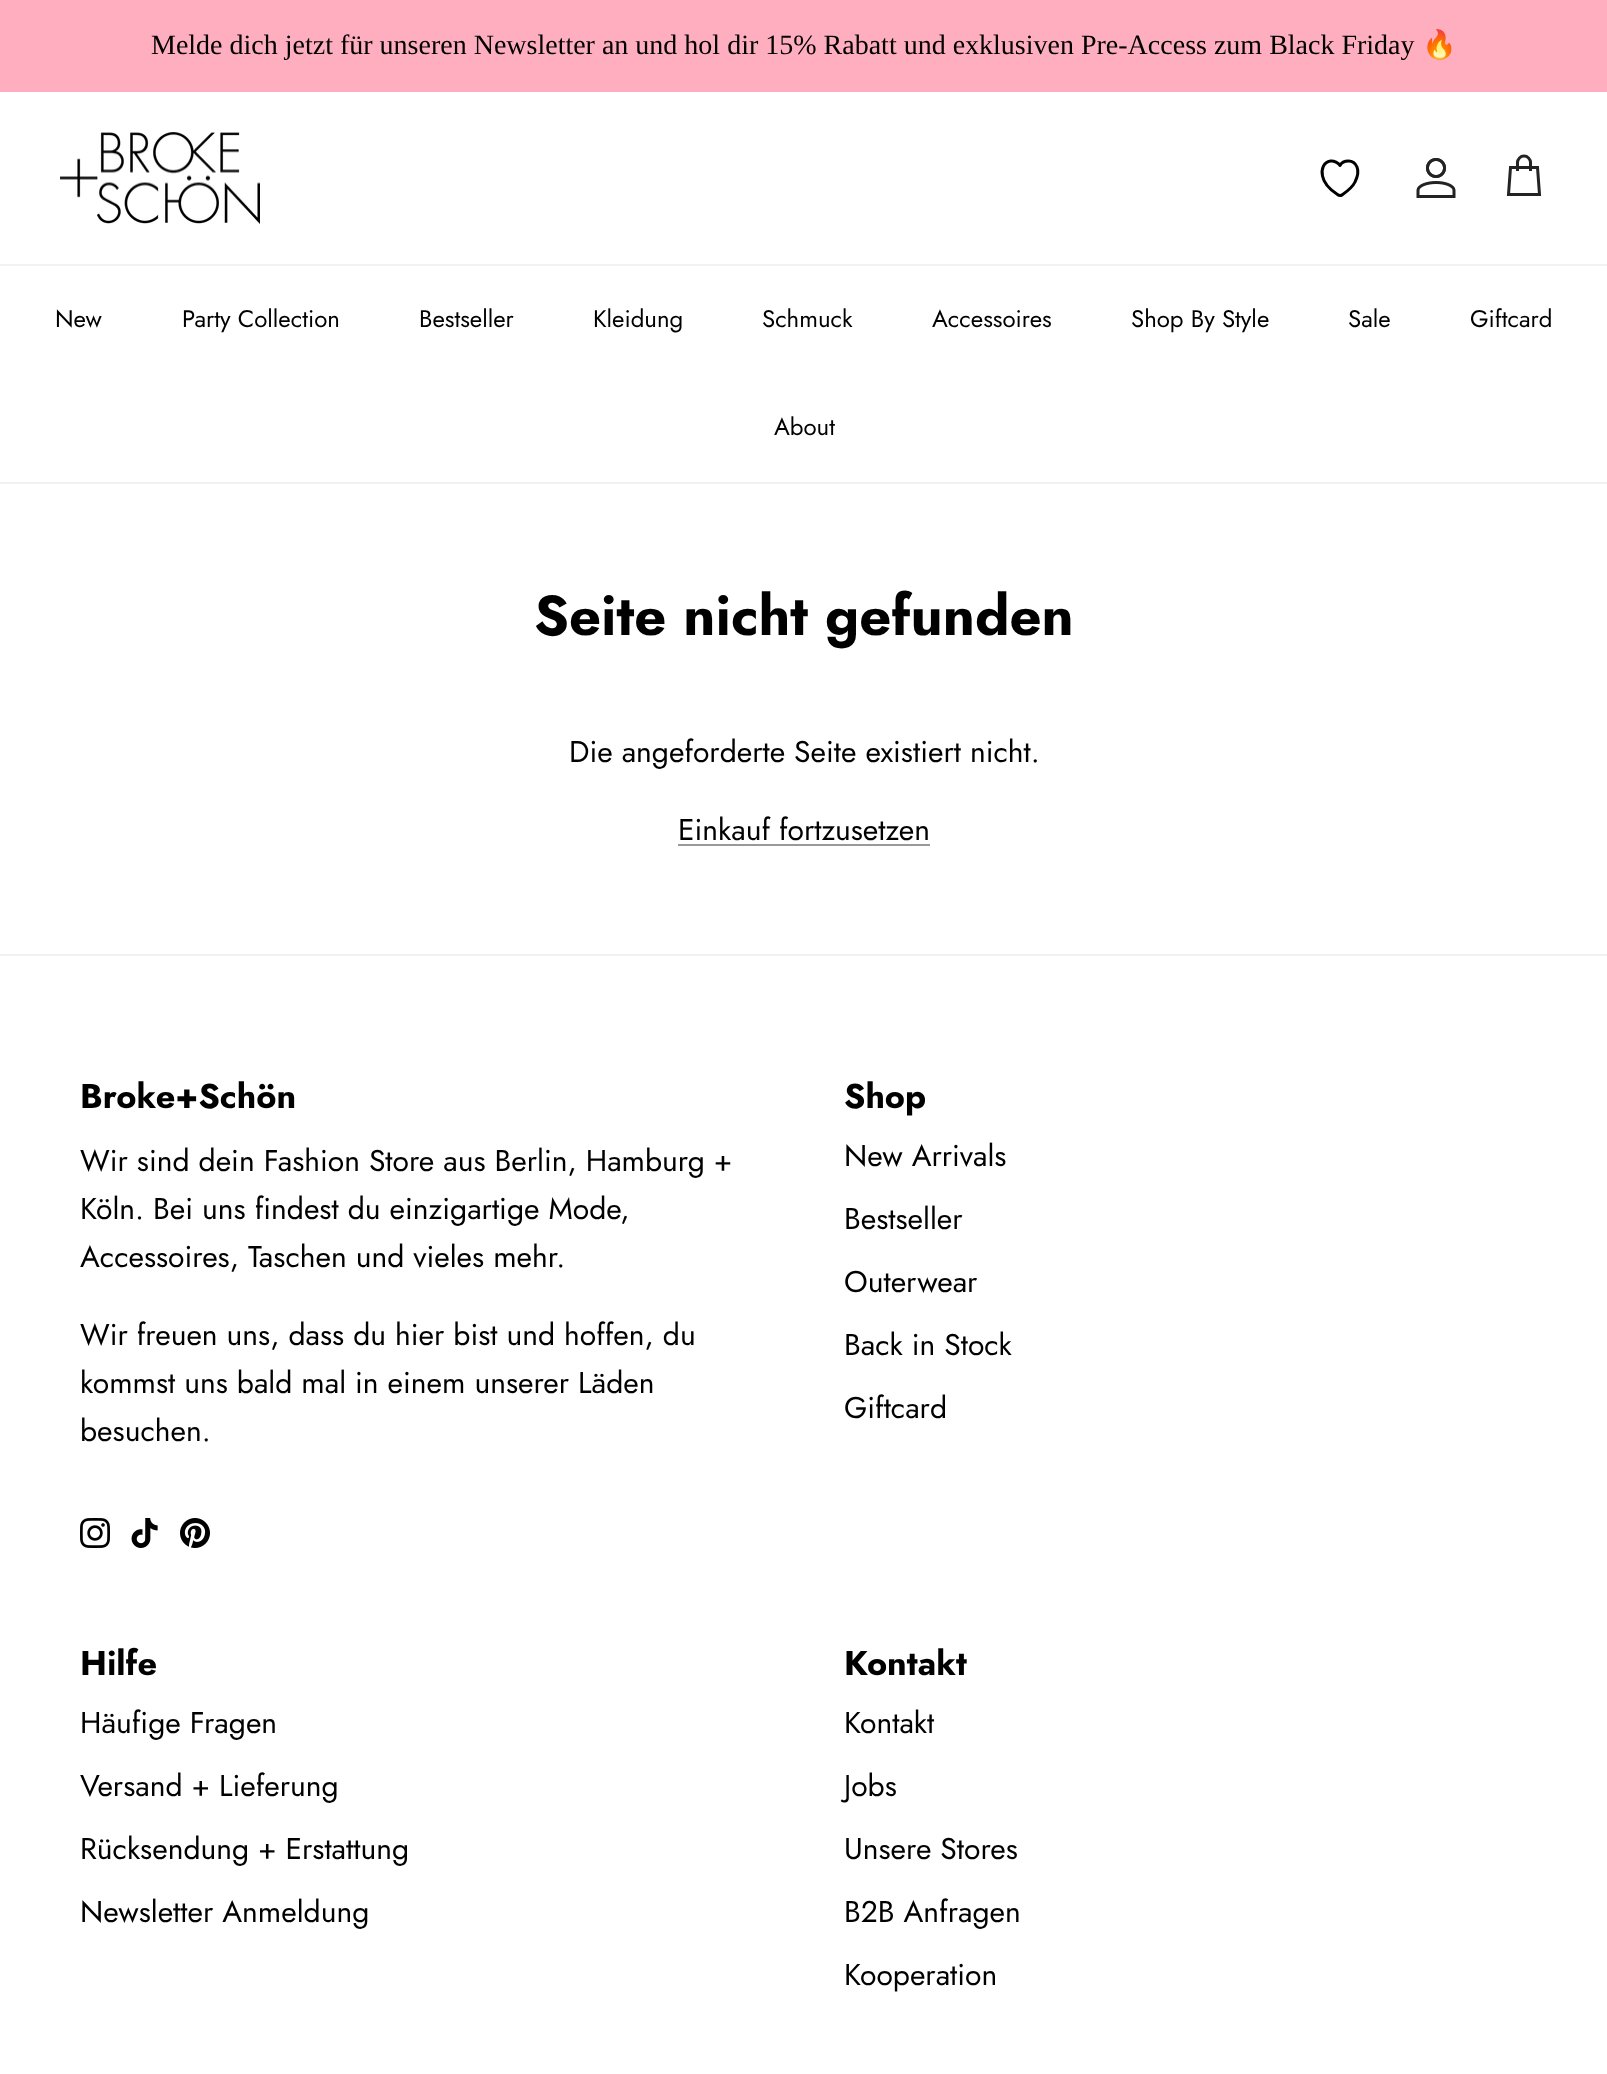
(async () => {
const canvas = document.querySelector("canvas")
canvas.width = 1607
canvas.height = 2074
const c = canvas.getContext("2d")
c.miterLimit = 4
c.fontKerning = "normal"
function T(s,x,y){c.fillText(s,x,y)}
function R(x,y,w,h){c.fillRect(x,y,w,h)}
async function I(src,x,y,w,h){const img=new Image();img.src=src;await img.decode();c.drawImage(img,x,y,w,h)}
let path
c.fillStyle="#fff"
R(0,0,1607,2074)
c.fillStyle="#ffaebf"
R(0,0,1607,92)
c.font="28px Liberation Serif"
c.fillStyle="#000"
T("Melde dich jetzt für unseren Newsletter an und hol dir 15% Rabatt und exklusiven Pre-Access zum Black Friday",151,54)
c.font="28px Noto Color Emoji"
T("🔥",1422,54)
c.fillStyle="#f1f1f1"
R(0,264,1607,2)
await I("1.png",60,132,200,92)
path = new Path2D("M1348.5 161c3.5 0 7 2.5 8.5 6c2 5 .5 10-2 15c-2.5 5.5-8 9.5-13 13c0 0-2.5 1-4.5-.5c-7-4.5-13.5-10.5-15-18.5c-1.5-6.5 1-14 8-15c3.5-.5 8 2 9.5 4.5c1.5-3 5-4.5 8.5-4.5z")
c.strokeStyle="#000"
c.lineWidth=3
c.lineJoin="round"
c.stroke(path)
await I("2.png",1416,158,40,40)
path = new Path2D("M1530.5 171v-8.5c0-3.5-3-6.5-6.5-6.5c-3.5 0-6.5 3-6.5 6.5v8.5m-7-3.5h27l2 27h-31z")
c.strokeStyle="#232323"
c.lineJoin="miter"
c.stroke(path)
R(0,482,1607,2)
c.font="24px Jost"
c.fillStyle="#000"
T("New",55,327)
T("Party Collection",182,327)
T("Bestseller",419,327)
T("Kleidung",593,327)
T("Schmuck",762,327)
T("Accessoires",932,327)
T("Shop By Style",1131,327)
T("Sale",1348,327)
T("Giftcard",1470,327)
T("About",774,435)
c.font="bold 56px Jost"
T("Seite nicht gefunden",534,635)
c.font="30px Jost"
T("Die angeforderte Seite existiert nicht.",569,762)
T("Einkauf fortzusetzen",678,840)
c.fillStyle="#999"
R(678,844,252,2)
c.fillStyle="#f1f1f1"
R(0,954,1607,2)
c.font="bold 34.25px Jost"
c.fillStyle="#000"
T("Broke+Schön",80,1108)
c.font="30px Jost"
T("Wir sind dein Fashion Store aus Berlin, Hamburg +",80,1171)
T("Köln. Bei uns findest du einzigartige Mode,",80,1219)
T("Accessoires, Taschen und vieles mehr.",80,1267)
T("Wir freuen uns, dass du hier bist und hoffen, du",80,1345)
T("kommst uns bald mal in einem unserer Läden",80,1393)
T("besuchen.",80,1441)
await I("3.png",80,1518,30,30)
await I("4.png",131,1518,27,30)
await I("5.png",180,1518,30,30)
c.font="bold 34.25px Jost"
T("Shop",844,1108)
c.font="30px Jost"
T("New Arrivals",844,1166)
T("Bestseller",844,1229)
T("Outerwear",844,1292)
T("Back in Stock",844,1355)
T("Giftcard",844,1418)
c.font="bold 34.25px Jost"
T("Hilfe",80,1675)
c.font="30px Jost"
T("Häufige Fragen",80,1733)
T("Versand + Lieferung",80,1796)
T("Rücksendung + Erstattung",80,1859)
T("Newsletter Anmeldung",80,1922)
c.font="bold 34.25px Jost"
T("Kontakt",844,1675)
c.font="30px Jost"
T("Kontakt",844,1733)
T("Jobs",844,1796)
T("Unsere Stores",844,1859)
T("B2B Anfragen",844,1922)
T("Kooperation",844,1985)
})()
